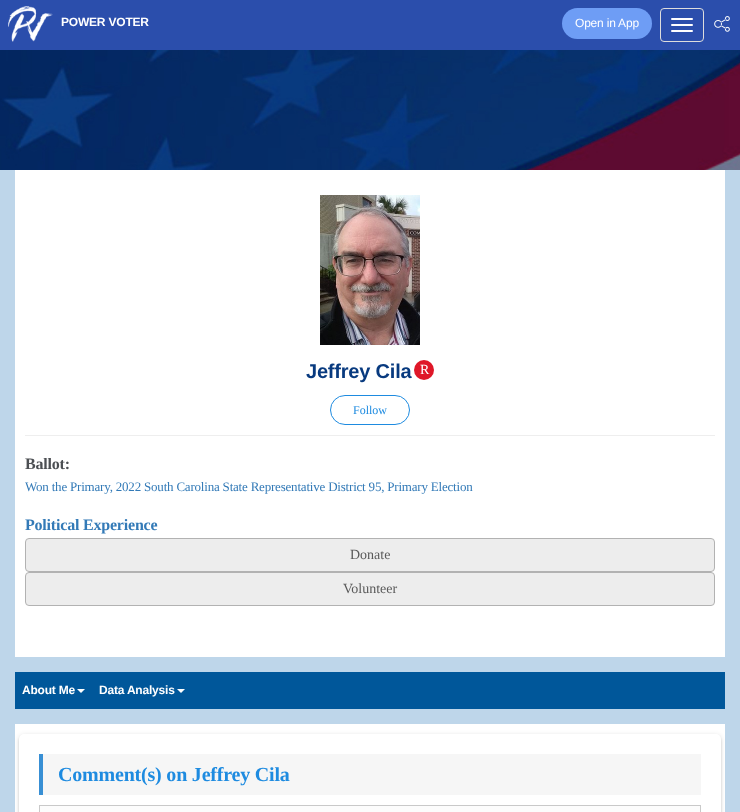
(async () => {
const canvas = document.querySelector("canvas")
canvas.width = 740
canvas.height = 812
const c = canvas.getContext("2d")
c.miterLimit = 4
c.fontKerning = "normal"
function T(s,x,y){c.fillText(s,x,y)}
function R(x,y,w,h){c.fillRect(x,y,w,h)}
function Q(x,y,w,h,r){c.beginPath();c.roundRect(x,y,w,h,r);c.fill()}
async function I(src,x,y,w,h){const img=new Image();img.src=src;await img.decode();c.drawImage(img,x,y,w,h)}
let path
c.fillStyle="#bed6ea"
R(0,0,740,812)
c.fillStyle="#2b4eac"
R(0,0,740,50)
await I("1.png",8,6,45,36)
c.letterSpacing="-0.2px"
c.font="bold 12px Liberation Sans"
c.fillStyle="#fff"
T("POWER VOTER",61,26)
c.fillStyle="#6e9df5"
Q(562,8,90,31,15.5)
c.font="12px Liberation Sans"
c.fillStyle="#fff"
T("Open in App",575,27)
c.beginPath()
c.roundRect(660.5,8.5,43,33,3.5)
c.strokeStyle="#ddd"
c.stroke()
Q(671,18,22,2,1)
Q(671,24,22,2,1)
Q(671,30,22,2,1)
await I("2.png",714,16,16,16)
await I("3.png",0,50,740,120)
R(15,170,710,487)
await I("4.png",320,195,100,150)
c.font="bold 20px Liberation Sans"
c.fillStyle="#083a7f"
T("Jeffrey Cila",306,378)
c.fillStyle="#df1728"
c.beginPath()
c.arc(424,370,10,0,7)
c.fill()
c.font="14px Liberation Serif"
c.fillStyle="#fff"
T("R",420,374)
c.beginPath()
c.roundRect(330.5,395.5,79,29,14.5)
c.strokeStyle="#1e8be0"
c.stroke()
c.letterSpacing="0px"
c.font="12px Liberation Serif"
c.fillStyle="#1e8be0"
T("Follow",353,414)
c.fillStyle="#eee"
R(25,435,690,1)
c.letterSpacing="-0.2px"
c.font="bold 16px Liberation Serif"
c.fillStyle="#4c4f53"
T("Ballot:",25,469)
c.font="13px Liberation Serif"
c.fillStyle="#337ab7"
T("Won the Primary, 2022 South Carolina State Representative District 95, Primary Election",25,491)
c.font="bold 16px Liberation Serif"
T("Political Experience",25,530)
c.fillStyle="#ededed"
c.beginPath()
c.roundRect(25.5,538.5,689,33,3.5)
c.fill()
c.strokeStyle="#b2b2b2"
c.stroke()
c.letterSpacing="0px"
c.font="14px Liberation Serif"
c.fillStyle="#595959"
T("Donate",350,559)
c.fillStyle="#ededed"
c.beginPath()
c.roundRect(25.5,572.5,689,33,3.5)
c.fill()
c.stroke()
c.fillStyle="#595959"
T("Volunteer",343,593)
c.fillStyle="#00579a"
R(15,672,710,37)
c.letterSpacing="-0.2px"
c.font="bold 12px Liberation Sans"
c.fillStyle="#fff"
T("About Me",22,694)
path = new Path2D("M77 689h8l-4 4z")
c.fill(path)
T("Data Analysis",99,694)
path = new Path2D("M177 689h8l-4 4z")
c.fill(path)
R(15,724,710,88)
c.fillStyle="#0000001f"
c.filter="blur(2.5px)"
c.beginPath()
c.roundRect(19,735,702,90,5)
c.fill()
c.filter="none"
c.fillStyle="#00000024"
c.filter="blur(1px)"
c.beginPath()
c.roundRect(19,736,702,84,5)
c.fill()
c.filter="none"
c.fillStyle="#fff"
Q(19,734,702,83,5)
c.fillStyle="#f6f6f6"
R(43,754,658,41)
c.fillStyle="#388fd4"
R(39,754,4,41)
c.font="bold 20px Liberation Serif"
c.fillStyle="#1e8be0"
T("Comment(s) on Jeffrey Cila",58,781)
c.strokeStyle="#c9c9c9"
c.strokeRect(39.5,805.5,661,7)
c.fillStyle="#fcfcfc"
R(40,806,660,6)
})()
